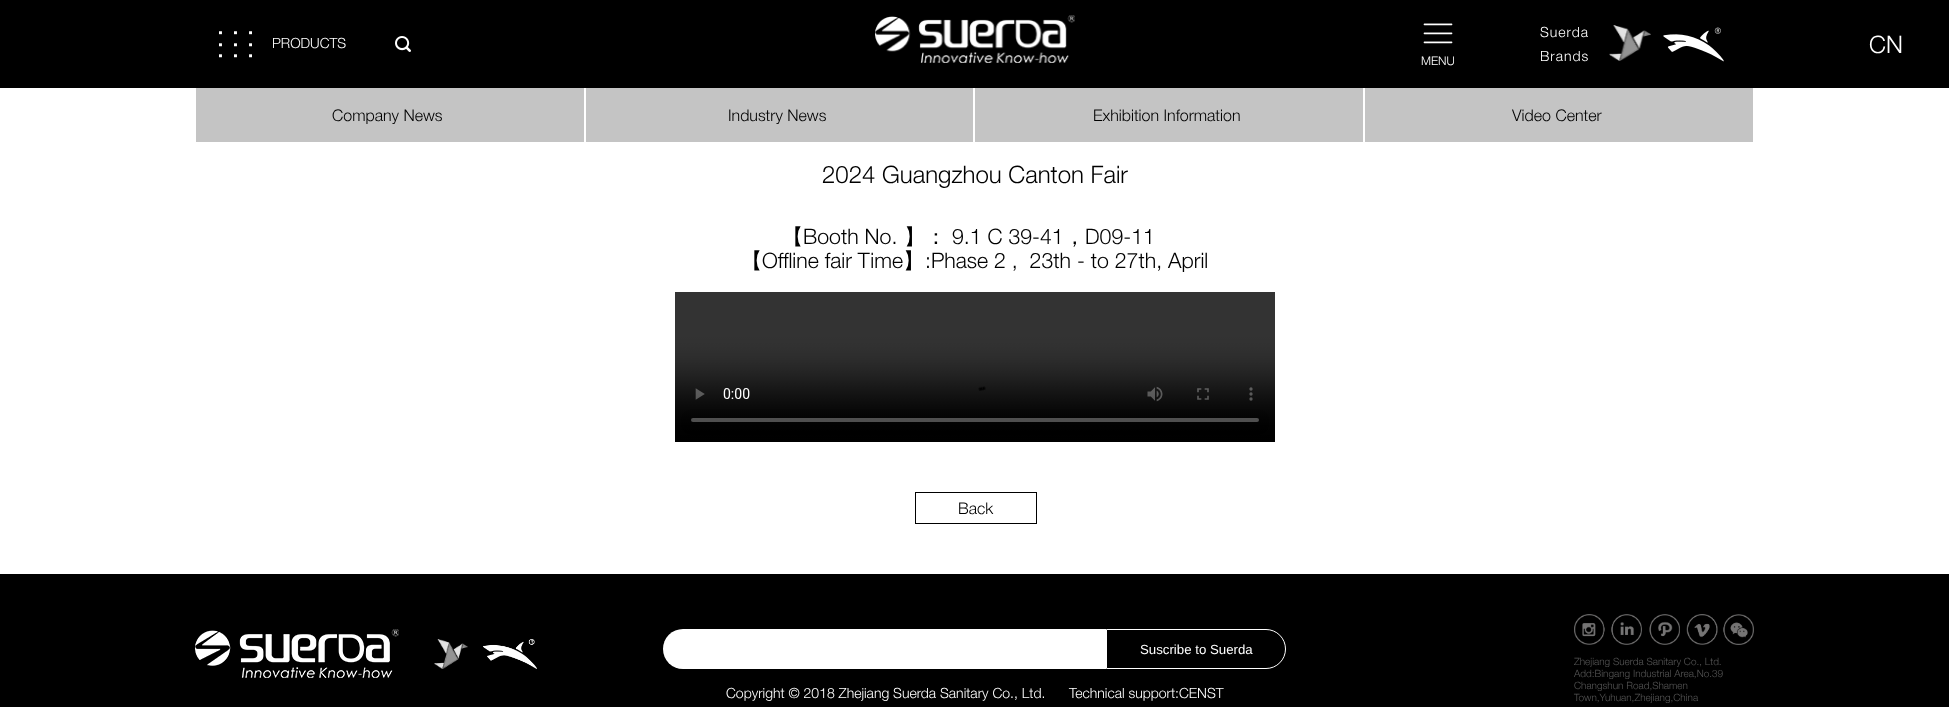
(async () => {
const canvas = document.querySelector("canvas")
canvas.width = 1949
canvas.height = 707
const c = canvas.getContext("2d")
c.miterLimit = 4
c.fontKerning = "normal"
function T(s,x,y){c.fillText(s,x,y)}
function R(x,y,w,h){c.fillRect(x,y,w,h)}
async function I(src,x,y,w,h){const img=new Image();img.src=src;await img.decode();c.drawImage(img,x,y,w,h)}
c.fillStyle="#fff"
R(0,0,1949,707)
c.fillStyle="#000"
R(0,0,1949,88)
await I("1.png",219,31,33,27)
c.font="300 14px 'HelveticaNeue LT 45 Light'"
c.fillStyle="#fff"
T("PRODUCTS",272,48)
await I("2.png",395,36,16,16)
await I("3.png",875,15,200,48)
c.letterSpacing="1px"
T("Suerda",1540,37)
T("Brands",1540,61)
await I("4.png",1609,25,42,36)
await I("5.png",1663,27,61,35)
c.letterSpacing="0px"
c.font="300 24px 'HelveticaNeue LT 45 Light'"
T("CN",1869,53)
await I("6.png",1423,23,30,21)
c.font="300 12px 'HelveticaNeue LT 45 Light'"
T("MENU",1421,65)
c.fillStyle="#c4c4c4"
R(196,88,388,54)
c.font="300 16px 'HelveticaNeue LT 45 Light'"
c.fillStyle="#000"
T("Company News",332,121)
c.fillStyle="#c4c4c4"
R(586,88,387,54)
c.fillStyle="#000"
T("Industry News",728,121)
c.fillStyle="#c4c4c4"
R(975,88,388,54)
c.fillStyle="#000"
T("Exhibition Information",1093,121)
c.fillStyle="#c4c4c4"
R(1365,88,388,54)
c.fillStyle="#000"
T("Video Center",1512,121)
c.font="300 24px 'HelveticaNeue LT 45 Light'"
T("2024 Guangzhou Canton Fair",822,183)
c.font="500 21.3px WenQuanYi Zen Hei"
T("【",782,244)
c.font="300 21.3px 'HelveticaNeue LT 45 Light'"
T("Booth No.",803,244)
c.font="500 21.3px WenQuanYi Zen Hei"
T("】：",904,244)
c.font="300 21.3px 'HelveticaNeue LT 45 Light'"
T("9.1 C 39-41",952,244)
c.font="500 21.3px WenQuanYi Zen Hei"
T("，",1064,244)
c.font="300 21.3px 'HelveticaNeue LT 45 Light'"
T("D09-11",1085,244)
c.font="500 21.3px WenQuanYi Zen Hei"
T("【",741,268)
c.font="300 21.3px 'HelveticaNeue LT 45 Light'"
T("Offline fair Time",762,268)
c.font="500 21.3px WenQuanYi Zen Hei"
T("】",903,268)
c.font="300 21.3px 'HelveticaNeue LT 45 Light'"
T(":Phase 2 ,  23th - to 27th, April",925,268)
await I("7.png",675,292,600,150)
c.strokeStyle="#000"
c.strokeRect(915.5,492.5,121,31)
c.font="300 16px 'HelveticaNeue LT 45 Light'"
T("Back",958,514)
R(0,574,1949,133)
await I("8.png",195,629,204,49)
await I("9.png",434,639,34,30)
await I("10.png",483,639,54,30)
c.fillStyle="#fff"
c.beginPath()
c.roundRect(663,629,443,40,[20,0,0,20])
c.fill()
c.beginPath()
c.roundRect(1106.5,629.5,179,39,[0,19.5,19.5,0])
c.strokeStyle="#fff"
c.stroke()
c.font="13.25px Liberation Sans"
T("Suscribe to Suerda",1140,654)
c.font="300 14px 'HelveticaNeue LT 45 Light'"
T("Copyright © 2018 Zhejiang Suerda Sanitary Co., Ltd.",726,698)
T("Technical support:CENST",1069,698)
await I("11.png",1574,614,180,31)
c.font="300 10px 'HelveticaNeue LT 45 Light'"
c.fillStyle="#555"
T("Zhejiang Suerda Sanitary Co., Ltd.",1574,665)
T("Add:Bingang Industrial Area,No.39",1574,677)
T("Changshun Road,Shamen",1574,689)
T("Town,Yuhuan,Zhejiang,China",1574,701)
})()
